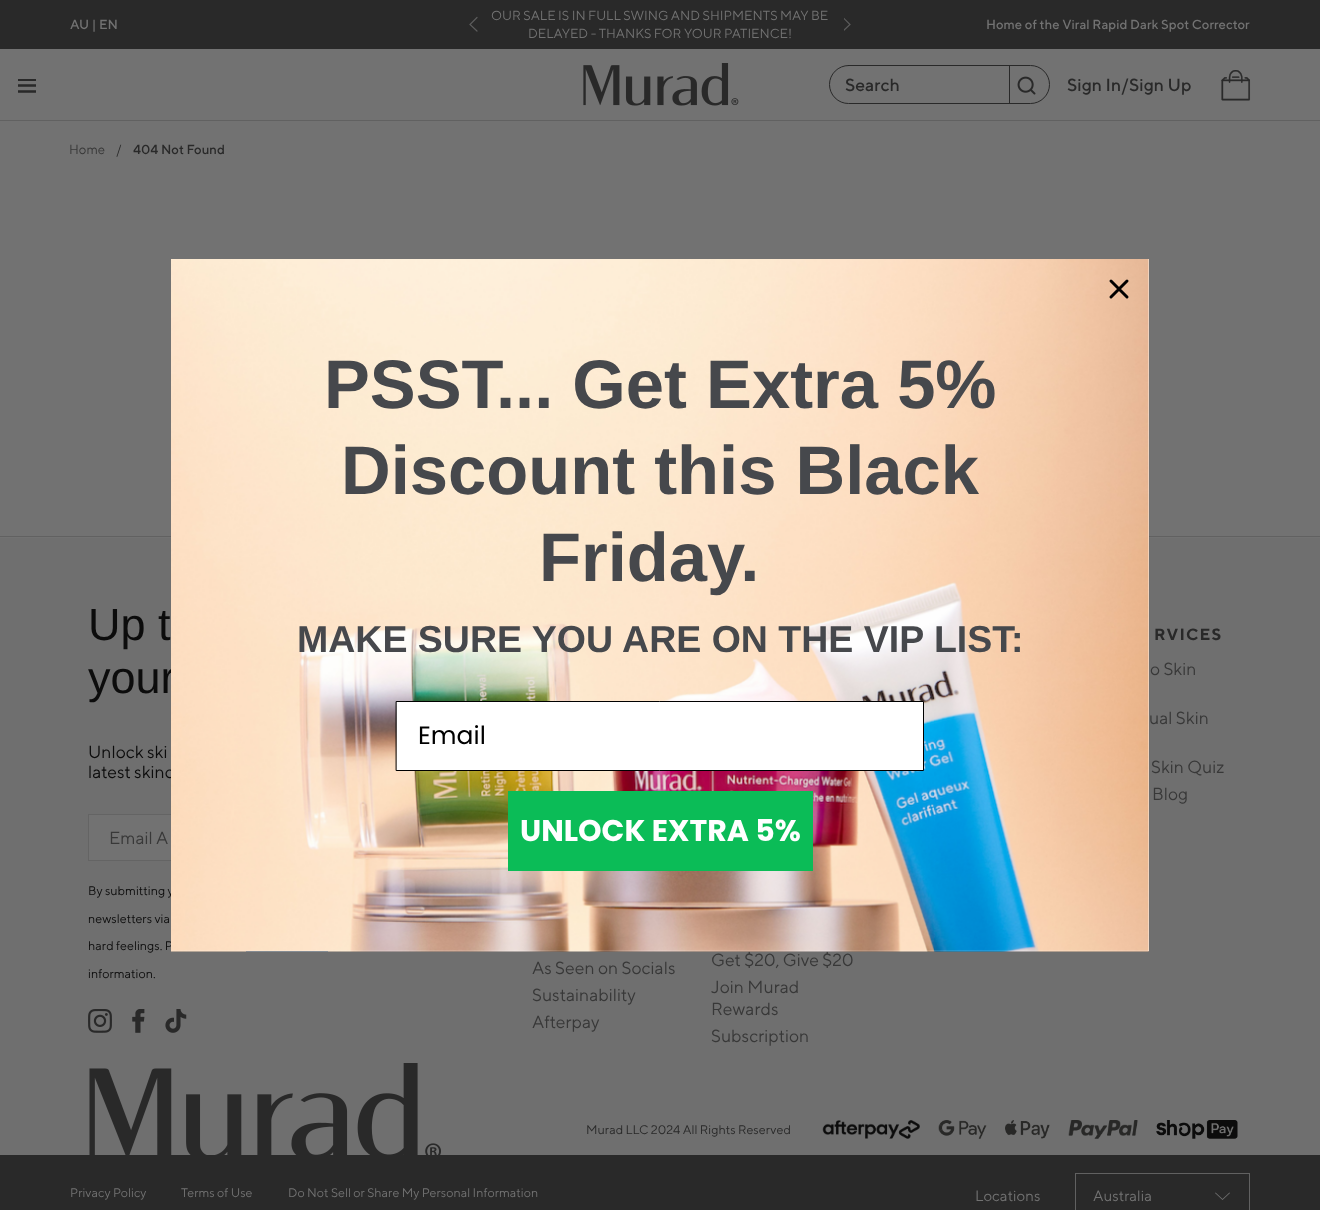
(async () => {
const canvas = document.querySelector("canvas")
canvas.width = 1320
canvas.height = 1210
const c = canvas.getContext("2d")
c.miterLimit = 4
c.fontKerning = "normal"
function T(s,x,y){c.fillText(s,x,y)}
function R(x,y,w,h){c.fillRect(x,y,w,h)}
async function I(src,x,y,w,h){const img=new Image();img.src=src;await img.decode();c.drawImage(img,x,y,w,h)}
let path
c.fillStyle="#727272"
R(0,0,1320,1210)
c.fillStyle="#292929"
R(0,0,1320,49)
c.font="500 13.1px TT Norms"
c.fillStyle="#727272"
T("AU | EN",70,29)
c.font="13.1px TT Norms"
T("OUR SALE IS IN FULL SWING AND SHIPMENTS MAY BE",491,20)
T("DELAYED - THANKS FOR YOUR PATIENCE!",528,38)
path = new Path2D("M477 31l-7-6.5l7-7")
c.strokeStyle="#5c5c5c"
c.lineWidth=1.2
c.lineCap="round"
c.stroke(path)
c.save()
c.beginPath()
c.rect(844,16,9,17)
c.clip()
path = new Path2D("M843 31l7-6.5l-7-7")
c.stroke(path)
c.restore()
c.font="500 13.1px TT Norms"
T("Home of the Viral Rapid Dark Spot Corrector",986,29)
c.fillStyle="#616161"
R(0,120,1320,1)
c.fillStyle="#292929"
R(18,79,18,2)
c.save()
c.beginPath()
c.rect(18,76,18,19)
c.clip()
path = new Path2D("M18.5 85.5h16.5m-16.5 6h16.5")
c.strokeStyle="#292929"
c.lineWidth=2.3
c.lineCap="square"
c.stroke(path)
c.restore()
await I("1.png",583,63,156,43)
c.beginPath()
c.roundRect(829.5,65.5,220,38,19)
c.strokeStyle="#292929"
c.lineWidth=1
c.stroke()
c.font="500 17.5px TT Norms"
T("Search",845,91)
R(1009,66,1,37)
await I("2.png",1017,76,19,19)
T("Sign In/Sign Up",1067,91)
await I("3.png",1221,70,30,31)
c.font="13.1px TT Norms"
c.fillStyle="#383838"
T("Home",69,154)
c.fillStyle="#292929"
T("/",116,154)
c.font="500 13.1px TT Norms"
T("404 Not Found",133,154)
c.fillStyle="#6f6f6f"
R(0,538,1320,617)
c.fillStyle="#616161"
R(0,536,1320,1)
c.font="45px Liberation Sans"
c.fillStyle="#0c0c0c"
T("your",88,693)
c.font="17.5px TT Norms"
T("latest skinc",88,778)
c.fillStyle="#727272"
R(89,815,82,45)
c.strokeStyle="#646464"
c.strokeRect(88.5,814.5,226,46)
c.font="12.5px TT Norms"
c.fillStyle="#0c0c0c"
T("By submitting y",88,895)
T("hard feelings. P",88,950)
c.fillStyle="#fff"
R(171,259,978,692)
c.fillStyle="#0c355e"
R(246,951,82,1)
c.font="17.5px TT Norms"
c.fillStyle="#383838"
T("Get $20, Give $20",711,966)
await I("4.png",171,259,978,693)
path = new Path2D("M1111 281l16 16m-16 0l16-16z")
c.strokeStyle="#000"
c.lineWidth=3
c.lineJoin="round"
c.stroke(path)
c.font="bold 68.75px Liberation Sans"
c.fillStyle="#46484c"
T("PSST... Get Extra 5%",324,408)
T("Discount this Black",341,494)
T("Friday.",539,581)
c.font="bold 37.5px Liberation Sans"
T("MAKE SURE YOU ARE ON THE VIP LIST:",297,652)
c.fillStyle="#fff"
c.beginPath()
c.rect(396.5,701.5,527,69)
c.fill()
c.lineWidth=1
c.lineJoin="miter"
c.stroke()
c.font="25px Poppins"
c.fillStyle="#000"
T("Email",418,744)
c.fillStyle="#0bbc57"
R(508,791,305,80)
c.font="bold 30px Poppins"
c.fillStyle="#fff"
T("UNLOCK EXTRA 5%",520,841)
c.font="45px Liberation Sans"
c.fillStyle="#0c0c0c"
T("Up t",88,640)
c.font="17.5px TT Norms"
T("Unlock ski",88,758)
c.fillStyle="#383838"
T("Email A",109,844)
c.font="12.5px TT Norms"
c.fillStyle="#0c0c0c"
T("newsletters via",88,923)
T("information.",88,978)
await I("5.png",88,1009,24,24)
await I("6.png",132,1009,13,24)
await I("7.png",165,1009,22,24)
await I("8.png",89,1063,352,92)
c.letterSpacing="1.25px"
c.font="bold 16.25px TT Norms"
c.fillStyle="#292929"
T("RVICES",1154,640)
c.letterSpacing="0px"
c.font="17.5px TT Norms"
c.fillStyle="#383838"
T("o Skin",1150,675)
T("ual Skin",1149,724)
T("Skin Quiz",1151,773)
T("Blog",1152,800)
T("As Seen on Socials",532,974)
T("Sustainability",532,1001)
T("Afterpay",532,1028)
T("Join Murad",711,993)
T("Rewards",711,1015)
T("Subscription",711,1042)
c.font="12.5px TT Norms"
c.fillStyle="#292929"
T("Murad LLC 2024 All Rights Reserved",586,1134)
await I("9.png",822,1120,98,19)
await I("10.png",938,1120,49,19)
await I("11.png",1005,1120,45,19)
await I("12.png",1068,1120,70,19)
await I("13.png",1156,1120,82,19)
R(0,1155,1320,55)
c.fillStyle="#727272"
T("Privacy Policy",70,1197)
T("Terms of Use",181,1197)
T("Do Not Sell or Share My Personal Information",288,1197)
c.font="15px TT Norms"
T("Locations",975,1201)
await I("14.png",1215,1192,15,8)
c.strokeStyle="#616161"
c.strokeRect(1075.5,1173.5,174,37)
T("Australia",1093,1201)
})()
